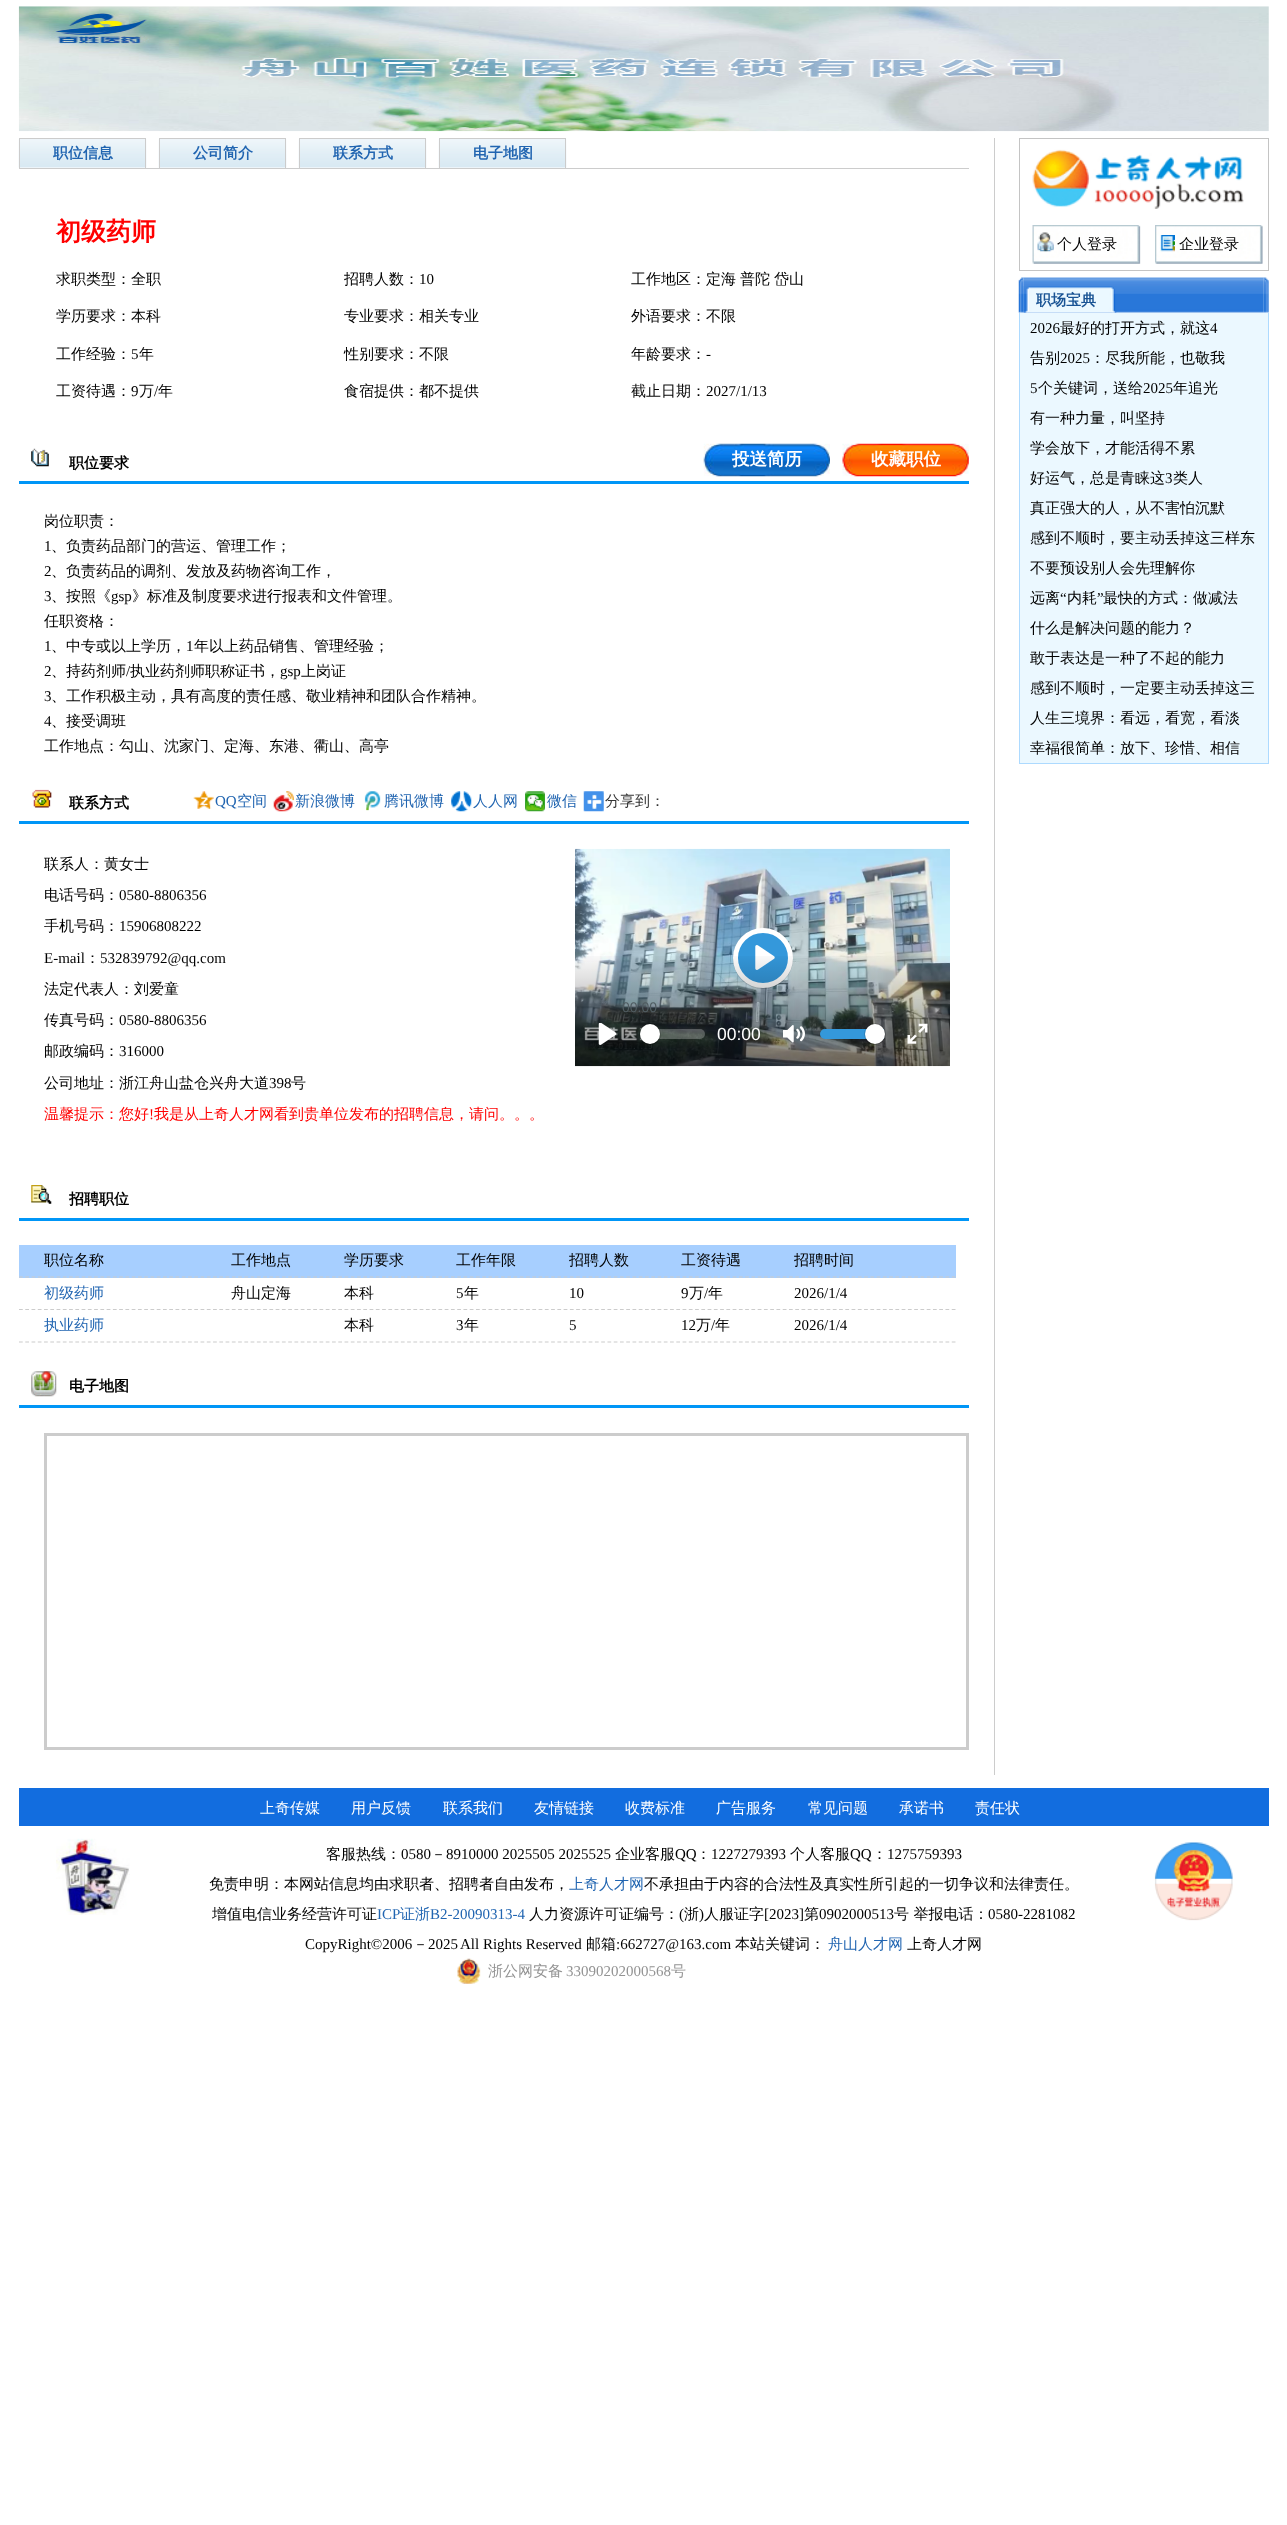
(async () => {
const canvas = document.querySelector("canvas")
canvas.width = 1287
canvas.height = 2525
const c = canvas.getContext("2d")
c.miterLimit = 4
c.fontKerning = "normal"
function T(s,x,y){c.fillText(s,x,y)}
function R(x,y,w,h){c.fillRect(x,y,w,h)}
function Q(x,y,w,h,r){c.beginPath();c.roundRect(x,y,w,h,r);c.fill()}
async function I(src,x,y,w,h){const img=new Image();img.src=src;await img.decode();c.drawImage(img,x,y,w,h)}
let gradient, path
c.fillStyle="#fff"
R(0,0,1287,2525)
await I("1.png",18,6,1251,126)
c.fillStyle="#ccc"
R(994,138,1,1637)
R(19,168,950,1)
await I("2.png",18,138,129,30)
R(19,138,127,1)
R(145,138,1,30)
R(19,138,1,30)
c.font="bold 15px WenQuanYi Zen Hei"
c.fillStyle="#2165b1"
T("职位信息",53,158)
await I("2.png",158,138,129,30)
c.fillStyle="#ccc"
R(159,138,127,1)
R(285,138,1,30)
R(159,138,1,30)
c.fillStyle="#2165b1"
T("公司简介",193,158)
await I("2.png",298,138,129,30)
c.fillStyle="#ccc"
R(299,138,127,1)
R(425,138,1,30)
R(299,138,1,30)
c.fillStyle="#2165b1"
T("联系方式",333,158)
await I("2.png",438,138,129,30)
c.fillStyle="#ccc"
R(439,138,127,1)
R(565,138,1,30)
R(439,138,1,30)
c.fillStyle="#2165b1"
T("电子地图",473,158)
c.font="bold 25px WenQuanYi Zen Hei"
c.fillStyle="#f00"
T("初级药师",56,240)
c.font="500 15px WenQuanYi Zen Hei"
c.fillStyle="#000"
T("求职类型：全职",56,284)
T("招聘人数：",344,284)
c.font="15px Liberation Serif"
T("10",419,284)
c.font="500 15px WenQuanYi Zen Hei"
T("工作地区：定海",631,284)
T("普陀",740,284)
T("岱山",774,284)
T("学历要求：本科",56,321)
T("专业要求：相关专业",344,321)
T("外语要求：不限",631,321)
T("工作经验：",56,359)
c.font="15px Liberation Serif"
T("5",131,359)
c.font="500 15px WenQuanYi Zen Hei"
T("年",139,359)
T("性别要求：不限",344,359)
T("年龄要求：",631,359)
c.font="15px Liberation Serif"
T("-",706,359)
c.font="500 15px WenQuanYi Zen Hei"
T("工资待遇：",56,396)
c.font="15px Liberation Serif"
T("9",131,396)
c.font="500 15px WenQuanYi Zen Hei"
T("万",139,396)
c.font="15px Liberation Serif"
T("/",154,396)
c.font="500 15px WenQuanYi Zen Hei"
T("年",158,396)
T("食宿提供：都不提供",344,396)
T("截止日期：",631,396)
c.font="15px Liberation Serif"
T("2027/1/13",706,396)
c.fillStyle="#0096f7"
R(19,481,950,3)
await I("3.png",31,448,18,19)
c.font="bold 15px WenQuanYi Zen Hei"
c.fillStyle="#000"
T("职位要求",69,468)
await I("4.png",703,443,127,34)
c.font="bold 17.5px WenQuanYi Zen Hei"
c.fillStyle="#fff"
T("投送简历",732,465)
await I("5.png",842,443,127,34)
T("收藏职位",871,465)
c.font="500 15px WenQuanYi Zen Hei"
c.fillStyle="#000"
T("岗位职责：",44,526)
c.font="15px Liberation Serif"
T("1",44,551)
c.font="500 15px WenQuanYi Zen Hei"
T("、负责药品部门的营运、管理工作；",51,551)
c.font="15px Liberation Serif"
T("2",44,576)
c.font="500 15px WenQuanYi Zen Hei"
T("、负责药品的调剂、发放及药物咨询工作，",51,576)
c.font="15px Liberation Serif"
T("3",44,601)
c.font="500 15px WenQuanYi Zen Hei"
T("、按照《",51,601)
c.font="15px Liberation Serif"
T("gsp",111,601)
c.font="500 15px WenQuanYi Zen Hei"
T("》标准及制度要求进行报表和文件管理。",132,601)
T("任职资格：",44,626)
c.font="15px Liberation Serif"
T("1",44,651)
c.font="500 15px WenQuanYi Zen Hei"
T("、中专或以上学历，",51,651)
c.font="15px Liberation Serif"
T("1",186,651)
c.font="500 15px WenQuanYi Zen Hei"
T("年以上药品销售、管理经验；",194,651)
c.font="15px Liberation Serif"
T("2",44,676)
c.font="500 15px WenQuanYi Zen Hei"
T("、持药剂师",51,676)
c.font="15px Liberation Serif"
T("/",126,676)
c.font="500 15px WenQuanYi Zen Hei"
T("执业药剂师职称证书，",130,676)
c.font="15px Liberation Serif"
T("gsp",280,676)
c.font="500 15px WenQuanYi Zen Hei"
T("上岗证",301,676)
c.font="15px Liberation Serif"
T("3",44,701)
c.font="500 15px WenQuanYi Zen Hei"
T("、工作积极主动，具有高度的责任感、敬业精神和团队合作精神。",51,701)
c.font="15px Liberation Serif"
T("4",44,726)
c.font="500 15px WenQuanYi Zen Hei"
T("、接受调班",51,726)
T("工作地点：勾山、沈家门、定海、东港、衢山、高亭",44,751)
c.fillStyle="#0096f7"
R(19,821,950,3)
await I("6.png",32,789,20,19)
c.font="bold 15px WenQuanYi Zen Hei"
c.fillStyle="#000"
T("联系方式",69,808)
await I("7.png",193,791,21,18)
c.font="15px Liberation Serif"
c.fillStyle="#2165b1"
T("QQ",215,806)
c.font="500 15px WenQuanYi Zen Hei"
T("空间",237,806)
await I("8.png",273,791,21,21)
T("新浪微博",295,806)
await I("9.png",364,791,17,20)
T("腾讯微博",384,806)
await I("10.png",451,791,21,21)
T("人人网",473,806)
await I("11.png",525,791,20,21)
T("微信",547,806)
await I("12.png",583,791,21,21)
c.fillStyle="#333"
T("分享到：",605,806)
c.fillStyle="#000"
T("联系人：黄女士",44,869)
T("电话号码：",44,900)
c.font="15px Liberation Serif"
T("0580-8806356",119,900)
c.font="500 15px WenQuanYi Zen Hei"
T("手机号码：",44,931)
c.font="15px Liberation Serif"
T("15906808222",119,931)
T("E-mail",44,963)
c.font="500 15px WenQuanYi Zen Hei"
T("：",85,963)
c.font="15px Liberation Serif"
T("532839792@qq.com",100,963)
c.font="500 15px WenQuanYi Zen Hei"
T("法定代表人：刘爱童",44,994)
T("传真号码：",44,1025)
c.font="15px Liberation Serif"
T("0580-8806356",119,1025)
c.font="500 15px WenQuanYi Zen Hei"
T("邮政编码：",44,1056)
c.font="15px Liberation Serif"
T("316000",119,1056)
c.font="500 15px WenQuanYi Zen Hei"
T("公司地址：浙江舟山盐仓兴舟大道",44,1088)
c.font="15px Liberation Serif"
T("398",269,1088)
c.font="500 15px WenQuanYi Zen Hei"
T("号",291,1088)
c.fillStyle="#f00"
T("温馨提示：您好",44,1119)
c.font="15px Liberation Serif"
T("!",149,1119)
c.font="500 15px WenQuanYi Zen Hei"
T("我是从上奇人才网看到贵单位发布的招聘信息，请问。。。",154,1119)
await I("13.png",575,848,375,219)
c.fillStyle="#00000026"
c.filter="blur(0.5px)"
c.beginPath()
c.roundRect(733,929,60,60,30)
c.fill()
c.filter="none"
c.fillStyle="#3498db"
c.beginPath()
c.arc(763,958,27.5,0,7)
c.fill()
c.strokeStyle="#fff"
c.lineWidth=5
c.stroke()
await I("14.png",755,945,20,25)
gradient = c.createLinearGradient(763,951,763,1066)
gradient.addColorStop(0,"#00000000")
gradient.addColorStop(1,"#00000080")
c.fillStyle = gradient
R(575,956,375,110)
c.font="14px Liberation Sans"
c.fillStyle="#505c61"
T("00:00",622,1012)
c.fillStyle="#ffffff40"
Q(640,1029,65,10,5)
c.beginPath()
c.arc(650,1034,10.5,0,7)
c.strokeStyle="#00000026"
c.lineWidth=1
c.stroke()
c.fillStyle="#00000026"
c.filter="blur(0.5px)"
c.beginPath()
c.roundRect(640,1025,20,20,10)
c.fill()
c.filter="none"
c.fillStyle="#fff"
c.beginPath()
c.arc(650,1034,10,0,7)
c.fill()
await I("15.png",598,1023,19,22)
c.font="17.5px Liberation Sans"
T("00:00",717,1040)
await I("16.png",783,1025,22,18)
c.fillStyle="#3498db"
c.beginPath()
c.roundRect(820,1029,64,10,[5,0,0,5])
c.fill()
c.beginPath()
c.arc(875,1034,10.5,0,7)
c.stroke()
c.fillStyle="#00000026"
c.filter="blur(0.5px)"
c.beginPath()
c.roundRect(865,1025,20,20,10)
c.fill()
c.filter="none"
c.fillStyle="#fff"
c.beginPath()
c.arc(875,1034,10,0,7)
c.fill()
await I("17.png",907,1023,21,21)
c.fillStyle="#0096f7"
R(19,1218,950,3)
await I("18.png",31,1185,21,19)
c.font="bold 15px WenQuanYi Zen Hei"
c.fillStyle="#000"
T("招聘职位",69,1204)
c.fillStyle="#a7cfff"
R(19,1245,937,33)
path = new Path2D("M19 1277h937")
c.strokeStyle="#ccc"
c.lineWidth=1.2
c.setLineDash([3.75,2.51])
c.stroke(path)
c.font="500 15px WenQuanYi Zen Hei"
c.fillStyle="#000"
T("职位名称",44,1265)
T("工作地点",231,1265)
T("学历要求",344,1265)
T("工作年限",456,1265)
T("招聘人数",569,1265)
T("工资待遇",681,1265)
T("招聘时间",794,1265)
path = new Path2D("M19 1309.5h937")
c.stroke(path)
c.fillStyle="#2165b1"
T("初级药师",44,1298)
c.fillStyle="#000"
T("舟山定海",231,1298)
T("本科",344,1298)
c.font="15px Liberation Serif"
T("5",456,1298)
c.font="500 15px WenQuanYi Zen Hei"
T("年",464,1298)
c.font="15px Liberation Serif"
T("10",569,1298)
T("9",681,1298)
c.font="500 15px WenQuanYi Zen Hei"
T("万",689,1298)
c.font="15px Liberation Serif"
T("/",704,1298)
c.font="500 15px WenQuanYi Zen Hei"
T("年",708,1298)
c.font="15px Liberation Serif"
T("2026/1/4",794,1298)
path = new Path2D("M19 1342h937")
c.stroke(path)
c.font="500 15px WenQuanYi Zen Hei"
c.fillStyle="#2165b1"
T("执业药师",44,1330)
c.fillStyle="#000"
T("本科",344,1330)
c.font="15px Liberation Serif"
T("3",456,1330)
c.font="500 15px WenQuanYi Zen Hei"
T("年",464,1330)
c.font="15px Liberation Serif"
T("5",569,1330)
T("12",681,1330)
c.font="500 15px WenQuanYi Zen Hei"
T("万",696,1330)
c.font="15px Liberation Serif"
T("/",711,1330)
c.font="500 15px WenQuanYi Zen Hei"
T("年",715,1330)
c.font="15px Liberation Serif"
T("2026/1/4",794,1330)
c.fillStyle="#0096f7"
R(19,1405,950,3)
await I("19.png",31,1371,26,26)
c.font="bold 15px WenQuanYi Zen Hei"
c.fillStyle="#000"
T("电子地图",69,1391)
c.lineWidth=3
c.setLineDash([])
c.strokeRect(45.5,1434.5,922,314)
c.strokeStyle="#c4c4c4"
c.lineWidth=1
c.strokeRect(1019.5,138.5,249,132)
await I("20.png",1032,149,212,60)
await I("21.png",1032,225,109,39)
await I("22.png",1037,232,17,20)
c.font="500 15px WenQuanYi Zen Hei"
T("个人登录",1057,249)
await I("23.png",1155,225,108,39)
await I("24.png",1160,235,15,17)
T("企业登录",1179,249)
await I("25.png",1018,277,6,36)
await I("26.png",1023,277,241,36)
await I("27.png",1023,286,94,27)
c.font="bold 15px WenQuanYi Zen Hei"
c.fillStyle="#195394"
T("职场宝典",1036,305)
await I("28.png",1263,277,6,36)
c.fillStyle="#ebf8ff"
R(1020,313,248,450)
c.fillStyle="#addaff"
R(1268,313,1,451)
R(1019,763,250,1)
R(1019,313,1,451)
c.font="15px Liberation Serif"
c.fillStyle="#000"
T("2026",1030,333)
c.font="500 15px WenQuanYi Zen Hei"
T("最好的打开方式，就这",1060,333)
c.font="15px Liberation Serif"
T("4",1210,333)
c.font="500 15px WenQuanYi Zen Hei"
T("告别",1030,363)
c.font="15px Liberation Serif"
T("2025",1060,363)
c.font="500 15px WenQuanYi Zen Hei"
T("：尽我所能，也敬我",1090,363)
c.font="15px Liberation Serif"
T("5",1030,393)
c.font="500 15px WenQuanYi Zen Hei"
T("个关键词，送给",1038,393)
c.font="15px Liberation Serif"
T("2025",1143,393)
c.font="500 15px WenQuanYi Zen Hei"
T("年追光",1173,393)
T("有一种力量，叫坚持",1030,423)
T("学会放下，才能活得不累",1030,453)
T("好运气，总是青睐这",1030,483)
c.font="15px Liberation Serif"
T("3",1165,483)
c.font="500 15px WenQuanYi Zen Hei"
T("类人",1173,483)
T("真正强大的人，从不害怕沉默",1030,513)
T("感到不顺时，要主动丢掉这三样东",1030,543)
T("不要预设别人会先理解你",1030,573)
T("远离",1030,603)
c.font="15px Liberation Serif"
T("“",1060,603)
c.font="500 15px WenQuanYi Zen Hei"
T("内耗",1067,603)
c.font="15px Liberation Serif"
T("”",1097,603)
c.font="500 15px WenQuanYi Zen Hei"
T("最快的方式：做减法",1103,603)
T("什么是解决问题的能力？",1030,633)
T("敢于表达是一种了不起的能力",1030,663)
T("感到不顺时，一定要主动丢掉这三",1030,693)
T("人生三境界：看远，看宽，看淡",1030,723)
T("幸福很简单：放下、珍惜、相信",1030,753)
c.fillStyle="#126ddf"
R(19,1788,1250,38)
c.fillStyle="#fff"
T("上奇传媒",260,1813)
T("用户反馈",351,1813)
T("联系我们",443,1813)
T("友情链接",534,1813)
T("收费标准",625,1813)
T("广告服务",716,1813)
T("常见问题",808,1813)
T("承诺书",899,1813)
T("责任状",975,1813)
await I("29.png",56,1838,74,77)
c.fillStyle="#000"
T("客服热线：",326,1859)
c.font="15px Liberation Serif"
T("0580",401,1859)
c.font="500 15px WenQuanYi Zen Hei"
T("－",431,1859)
c.font="15px Liberation Serif"
T("8910000 2025505 2025525",446,1859)
c.font="500 15px WenQuanYi Zen Hei"
T("企业客服",615,1859)
c.font="15px Liberation Serif"
T("QQ",675,1859)
c.font="500 15px WenQuanYi Zen Hei"
T("：",696,1859)
c.font="15px Liberation Serif"
T("1227279393",711,1859)
c.font="500 15px WenQuanYi Zen Hei"
T("个人客服",790,1859)
c.font="15px Liberation Serif"
T("QQ",850,1859)
c.font="500 15px WenQuanYi Zen Hei"
T("：",872,1859)
c.font="15px Liberation Serif"
T("1275759393",887,1859)
c.font="500 15px WenQuanYi Zen Hei"
T("免责申明：本网站信息均由求职者、招聘者自由发布，",209,1889)
c.fillStyle="#2165b1"
T("上奇人才网",569,1889)
c.fillStyle="#000"
T("不承担由于内容的合法性及真实性所引起的一切争议和法律责任。",644,1889)
T("增值电信业务经营许可证",212,1919)
c.font="15px Liberation Serif"
c.fillStyle="#2165b1"
T("ICP",377,1919)
c.font="500 15px WenQuanYi Zen Hei"
T("证浙",400,1919)
c.font="15px Liberation Serif"
T("B2-20090313-4",430,1919)
c.font="500 15px WenQuanYi Zen Hei"
c.fillStyle="#000"
T("人力资源许可证编号：",529,1919)
c.font="15px Liberation Serif"
T("(",679,1919)
c.font="500 15px WenQuanYi Zen Hei"
T("浙",684,1919)
c.font="15px Liberation Serif"
T(")",699,1919)
c.font="500 15px WenQuanYi Zen Hei"
T("人服证字",704,1919)
c.font="15px Liberation Serif"
T("[2023]",764,1919)
c.font="500 15px WenQuanYi Zen Hei"
T("第",804,1919)
c.font="15px Liberation Serif"
T("0902000513",819,1919)
c.font="500 15px WenQuanYi Zen Hei"
T("号 举报电话：",894,1919)
c.font="15px Liberation Serif"
T("0580-2281082",988,1919)
T("CopyRight©2006",305,1949)
c.font="500 15px WenQuanYi Zen Hei"
T("－",413,1949)
c.font="15px Liberation Serif"
T("2025",428,1949)
T("All Rights Reserved",460,1949)
c.font="500 15px WenQuanYi Zen Hei"
T("邮箱",586,1949)
c.font="15px Liberation Serif"
T(":662727@163.com",616,1949)
c.font="500 15px WenQuanYi Zen Hei"
T("本站关键词：",735,1949)
c.fillStyle="#2165b1"
T("舟山人才网",828,1949)
c.fillStyle="#000"
T("上奇人才网",907,1949)
await I("30.png",1154,1842,79,79)
await I("31.png",457,1958,24,26)
c.fillStyle="#939393"
T("浙公网安备",488,1976)
c.font="15px Liberation Serif"
T("33090202000568",566,1976)
c.font="500 15px WenQuanYi Zen Hei"
T("号",671,1976)
})()
